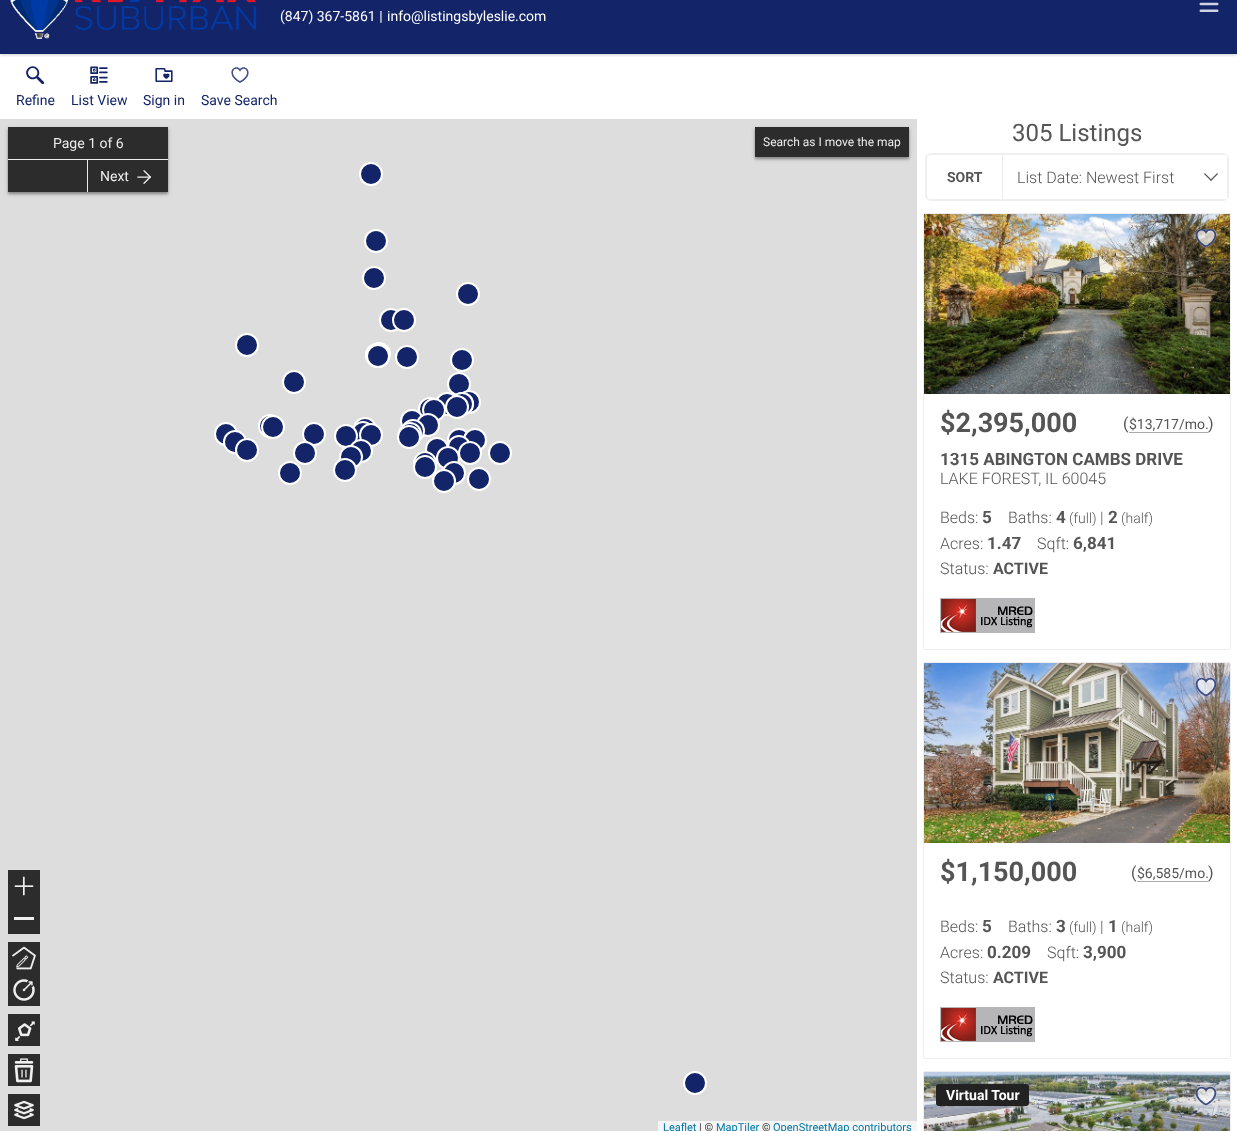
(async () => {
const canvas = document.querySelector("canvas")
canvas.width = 1237
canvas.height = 1131
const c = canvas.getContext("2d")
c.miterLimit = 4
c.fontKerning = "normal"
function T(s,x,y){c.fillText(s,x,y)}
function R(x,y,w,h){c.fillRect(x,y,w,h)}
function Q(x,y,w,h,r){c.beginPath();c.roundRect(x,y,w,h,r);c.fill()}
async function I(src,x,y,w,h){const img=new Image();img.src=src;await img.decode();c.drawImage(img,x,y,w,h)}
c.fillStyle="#fff"
R(0,0,1237,1131)
c.fillStyle="#00000033"
c.filter="blur(1.5px)"
c.beginPath()
c.rect(0,-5,1237,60)
c.fill()
c.filter="none"
c.fillStyle="#132568"
R(0,0,1237,54)
await I("1.png",1199,2,20,10)
await I("2.png",10,0,247,39)
c.font="14px Roboto"
c.fillStyle="#fff"
T("(847) 367-5861 |",280,21)
T("info@listingsbyleslie.com",387,21)
await I("3.png",26,66,19,18)
c.fillStyle="#132568"
T("Refine",16,105)
await I("4.png",90,66,18,18)
T("List View",71,105)
await I("5.png",155,68,18,14)
T("Sign in",143,105)
await I("6.png",231,67,18,16)
T("Save Search",201,105)
c.fillStyle="#ddd"
R(0,119,917,1012)
c.fillStyle="#00000040"
c.filter="blur(1px)"
c.beginPath()
c.rect(8,129,160,65)
c.fill()
c.filter="none"
c.fillStyle="#00000033"
c.filter="blur(2px)"
c.beginPath()
c.rect(8,129,160,65)
c.fill()
c.filter="none"
c.fillStyle="#2c2c2c"
R(8,127,160,65)
c.fillStyle="#ececec"
T("Page 1 of 6",53,148)
R(8,159,160,1)
R(87,160,1,32)
T("Next",100,181)
await I("7.png",137,170,14,14)
c.fillStyle="#132568"
c.beginPath()
c.arc(371,174,11,0,7)
c.fill()
c.strokeStyle="#fff"
c.lineWidth=2
c.stroke()
c.beginPath()
c.arc(376,241,11,0,7)
c.fill()
c.stroke()
c.beginPath()
c.arc(374,278,11,0,7)
c.fill()
c.stroke()
c.beginPath()
c.arc(468,294,11,0,7)
c.fill()
c.stroke()
c.beginPath()
c.arc(391,320,11,0,7)
c.fill()
c.stroke()
c.beginPath()
c.arc(404,320,11,0,7)
c.fill()
c.stroke()
c.beginPath()
c.arc(247,345,11,0,7)
c.fill()
c.stroke()
c.beginPath()
c.arc(379,354,11,0,7)
c.stroke()
c.beginPath()
c.arc(377,355,11,0,7)
c.stroke()
c.beginPath()
c.arc(377,355,11,0,7)
c.stroke()
c.beginPath()
c.arc(378,356,11,0,7)
c.stroke()
c.beginPath()
c.arc(378,356,11,0,7)
c.stroke()
c.beginPath()
c.arc(378,356,11,0,7)
c.fill()
c.stroke()
c.beginPath()
c.arc(407,357,11,0,7)
c.fill()
c.stroke()
c.beginPath()
c.arc(462,360,11,0,7)
c.fill()
c.stroke()
c.beginPath()
c.arc(294,382,11,0,7)
c.fill()
c.stroke()
c.beginPath()
c.arc(459,384,11,0,7)
c.fill()
c.stroke()
c.beginPath()
c.arc(469,402,11,0,7)
c.fill()
c.stroke()
c.beginPath()
c.arc(462,404,11,0,7)
c.stroke()
c.beginPath()
c.arc(462,404,11,0,7)
c.fill()
c.stroke()
c.beginPath()
c.arc(447,404,11,0,7)
c.fill()
c.stroke()
c.beginPath()
c.arc(430,409,11,0,7)
c.fill()
c.stroke()
c.beginPath()
c.arc(457,407,11,0,7)
c.fill()
c.stroke()
c.beginPath()
c.arc(434,410,11,0,7)
c.fill()
c.stroke()
c.beginPath()
c.arc(412,421,11,0,7)
c.fill()
c.stroke()
c.beginPath()
c.arc(270,426,11,0,7)
c.fill()
c.stroke()
c.beginPath()
c.arc(428,425,11,0,7)
c.fill()
c.stroke()
c.beginPath()
c.arc(273,427,11,0,7)
c.fill()
c.stroke()
c.beginPath()
c.arc(365,429,11,0,7)
c.fill()
c.stroke()
c.beginPath()
c.arc(413,431,11,0,7)
c.fill()
c.stroke()
c.beginPath()
c.arc(226,434,11,0,7)
c.fill()
c.stroke()
c.beginPath()
c.arc(314,434,11,0,7)
c.fill()
c.stroke()
c.beginPath()
c.arc(363,433,11,0,7)
c.fill()
c.stroke()
c.beginPath()
c.arc(410,434,11,0,7)
c.fill()
c.stroke()
c.beginPath()
c.arc(346,436,11,0,7)
c.fill()
c.stroke()
c.beginPath()
c.arc(371,435,11,0,7)
c.fill()
c.stroke()
c.beginPath()
c.arc(409,437,11,0,7)
c.fill()
c.stroke()
c.beginPath()
c.arc(459,440,11,0,7)
c.fill()
c.stroke()
c.beginPath()
c.arc(475,440,11,0,7)
c.stroke()
c.beginPath()
c.arc(235,442,11,0,7)
c.fill()
c.stroke()
c.beginPath()
c.arc(475,440,11,0,7)
c.fill()
c.stroke()
c.beginPath()
c.arc(459,447,11,0,7)
c.fill()
c.stroke()
c.beginPath()
c.arc(437,449,11,0,7)
c.fill()
c.stroke()
c.beginPath()
c.arc(247,450,11,0,7)
c.fill()
c.stroke()
c.beginPath()
c.arc(305,453,11,0,7)
c.fill()
c.stroke()
c.beginPath()
c.arc(361,451,11,0,7)
c.fill()
c.stroke()
c.beginPath()
c.arc(470,453,11,0,7)
c.fill()
c.stroke()
c.beginPath()
c.arc(500,453,11,0,7)
c.fill()
c.stroke()
c.beginPath()
c.arc(351,457,11,0,7)
c.fill()
c.stroke()
c.beginPath()
c.arc(448,458,11,0,7)
c.fill()
c.stroke()
c.beginPath()
c.arc(425,463,11,0,7)
c.fill()
c.stroke()
c.beginPath()
c.arc(290,473,11,0,7)
c.fill()
c.stroke()
c.beginPath()
c.arc(345,470,11,0,7)
c.fill()
c.stroke()
c.beginPath()
c.arc(425,467,11,0,7)
c.fill()
c.stroke()
c.beginPath()
c.arc(454,473,11,0,7)
c.fill()
c.stroke()
c.beginPath()
c.arc(479,479,11,0,7)
c.fill()
c.stroke()
c.beginPath()
c.arc(444,481,11,0,7)
c.fill()
c.stroke()
c.beginPath()
c.arc(695,1083,11,0,7)
c.fill()
c.stroke()
c.fillStyle="#00000040"
c.filter="blur(1px)"
c.beginPath()
c.rect(755,129,154,30)
c.fill()
c.filter="none"
c.fillStyle="#00000033"
c.filter="blur(2px)"
c.beginPath()
c.rect(755,129,154,30)
c.fill()
c.filter="none"
c.fillStyle="#2c2c2c"
R(755,127,154,30)
c.font="12px Roboto"
c.fillStyle="#ececec"
T("Search as I move the map",763,146)
c.fillStyle="#2c2c2c"
R(8,870,32,64)
await I("8.png",14,876,20,20)
c.fillStyle="#efefef"
R(14,917,20,3)
c.fillStyle="#2c2c2c"
R(8,942,32,64)
await I("9.png",12,946,24,24)
await I("10.png",13,979,22,22)
R(8,1014,32,32)
await I("11.png",15,1021,20,20)
R(8,1054,32,32)
await I("12.png",14,1058,20,25)
R(8,1094,32,32)
await I("13.png",14,1100,20,20)
c.fillStyle="#f5f5f5"
R(658,1121,259,10)
c.font="11px Roboto"
c.fillStyle="#0078a8"
T("Leaflet",663,1131)
c.fillStyle="#333"
T("| ©",699,1131)
c.fillStyle="#0078a8"
T("MapTiler",716,1131)
c.fillStyle="#333"
T("©",762,1131)
c.fillStyle="#0078a8"
T("OpenStreetMap contributors",773,1131)
c.font="24px Roboto"
c.fillStyle="#555"
T("305 Listings",1012,141)
c.beginPath()
c.roundRect(926,154,302,46,5)
c.strokeStyle="#efefef"
c.stroke()
c.font="bold 14px Roboto"
T("SORT",947,182)
c.fillStyle="#fff"
R(1224,155,3,44)
c.fillStyle="#ececec"
R(1002,155,1,44)
c.font="300 16px Roboto"
c.fillStyle="#555"
T("List Date: Newest First",1017,183)
await I("14.png",1204,173,14,8)
c.beginPath()
c.roundRect(923.5,213.5,307,436,1.5)
c.strokeStyle="#eee"
c.lineWidth=1
c.stroke()
await I("15.png",924,214,306,180)
await I("16.png",1195,228,22,20)
c.font="bold 27px Roboto"
T("$2,395,000",940,432)
c.font="16px Roboto"
T("(",1123,429)
c.fillStyle="#aaa"
R(1129,432,79,1)
c.font="14px Roboto"
c.fillStyle="#555"
T("$13,717/mo.",1129,429)
c.font="16px Roboto"
T(")",1208,429)
c.font="bold 17px Roboto"
T("1315 ABINGTON CAMBS DRIVE",940,465)
c.font="300 16px Roboto"
T("LAKE FOREST, IL 60045",940,484)
T("Beds:",940,523)
c.font="bold 17px Roboto"
T("5",982,523)
c.font="300 16px Roboto"
T("Baths:",1008,523)
c.font="bold 17px Roboto"
T("4",1056,523)
c.font="300 14px Roboto"
T("(full)",1069,523)
c.font="300 16px Roboto"
T("|",1100,523)
c.font="bold 17px Roboto"
T("2",1108,523)
c.font="300 14px Roboto"
T("(half)",1121,523)
c.font="300 16px Roboto"
T("Acres:",940,549)
c.font="bold 17px Roboto"
T("1.47",987,549)
c.font="300 16px Roboto"
T("Sqft:",1037,549)
c.font="bold 17px Roboto"
T("6,841",1073,549)
c.font="300 16px Roboto"
T("Status:",940,574)
c.font="bold 16px Roboto"
T("ACTIVE",993,574)
await I("17.png",940,598,95,35)
c.beginPath()
c.roundRect(923.5,662.5,307,396,1.5)
c.stroke()
await I("18.png",924,663,306,180)
await I("19.png",1195,677,22,20)
c.font="bold 27px Roboto"
T("$1,150,000",940,881)
c.font="16px Roboto"
T("(",1131,878)
c.fillStyle="#aaa"
R(1137,881,71,1)
c.font="14px Roboto"
c.fillStyle="#555"
T("$6,585/mo.",1137,878)
c.font="16px Roboto"
T(")",1208,878)
c.font="300 16px Roboto"
T("Beds:",940,932)
c.font="bold 17px Roboto"
T("5",982,932)
c.font="300 16px Roboto"
T("Baths:",1008,932)
c.font="bold 17px Roboto"
T("3",1056,932)
c.font="300 14px Roboto"
T("(full)",1069,932)
c.font="300 16px Roboto"
T("|",1100,932)
c.font="bold 17px Roboto"
T("1",1108,932)
c.font="300 14px Roboto"
T("(half)",1121,932)
c.font="300 16px Roboto"
T("Acres:",940,958)
c.font="bold 17px Roboto"
T("0.209",987,958)
c.font="300 16px Roboto"
T("Sqft:",1047,958)
c.font="bold 17px Roboto"
T("3,900",1083,958)
c.font="300 16px Roboto"
T("Status:",940,983)
c.font="bold 16px Roboto"
T("ACTIVE",993,983)
await I("17.png",940,1007,95,35)
c.beginPath()
c.roundRect(923.5,1071.5,307,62,1.5)
c.stroke()
await I("20.png",924,1072,306,59)
c.fillStyle="#222"
Q(936,1084,93,22,3)
c.font="bold 14px Roboto"
c.fillStyle="#fff"
T("Virtual Tour",946,1100)
await I("21.png",1195,1086,22,20)
})()
